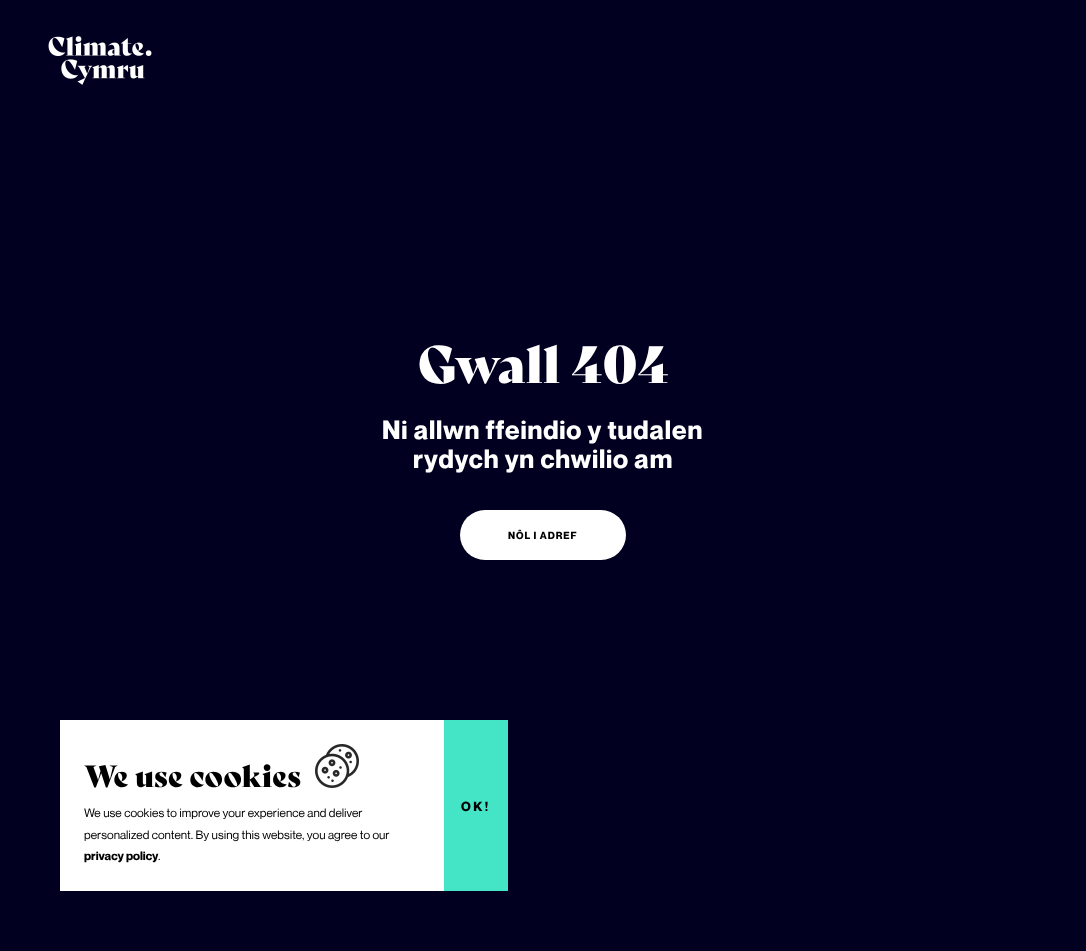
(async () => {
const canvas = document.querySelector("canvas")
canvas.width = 1086
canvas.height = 951
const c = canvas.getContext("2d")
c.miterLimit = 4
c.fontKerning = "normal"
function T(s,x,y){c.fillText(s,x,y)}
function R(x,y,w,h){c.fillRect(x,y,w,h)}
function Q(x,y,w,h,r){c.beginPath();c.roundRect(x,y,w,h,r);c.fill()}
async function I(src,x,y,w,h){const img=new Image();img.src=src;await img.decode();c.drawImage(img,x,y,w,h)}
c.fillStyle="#010020"
R(0,0,1086,951)
await I("1.png",48,36,104,49)
c.font="51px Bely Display"
c.fillStyle="#fff"
T("Gwall 404",418,383)
c.letterSpacing="0.9px"
c.font="bold 26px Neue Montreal"
T("Ni allwn ffeindio y tudalen",382,439)
T("rydych yn chwilio am",413,468)
Q(460,510,166,50,25)
c.font="bold 10px Neue Montreal"
c.fillStyle="#000"
T("NÔL I ADREF",508,539)
c.fillStyle="#fff"
R(60,720,384,171)
c.letterSpacing="0px"
c.font="30px Bely Display"
c.fillStyle="#000"
T("We use cookies",84,787)
await I("2.png",315,744,44,44)
c.fillStyle="#44e5c6"
R(444,720,64,171)
c.letterSpacing="2.5px"
c.font="bold 13px Neue Montreal"
c.fillStyle="#000"
T("OK!",461,811)
c.letterSpacing="0px"
c.font="12px Neue Montreal"
T("We use cookies to improve your experience and deliver",84,817)
T("personalized content. By using this website, you agree to our",84,839)
c.font="bold 12px Neue Montreal"
T("privacy policy",84,860)
c.font="12px Neue Montreal"
T(".",158,860)
})()
